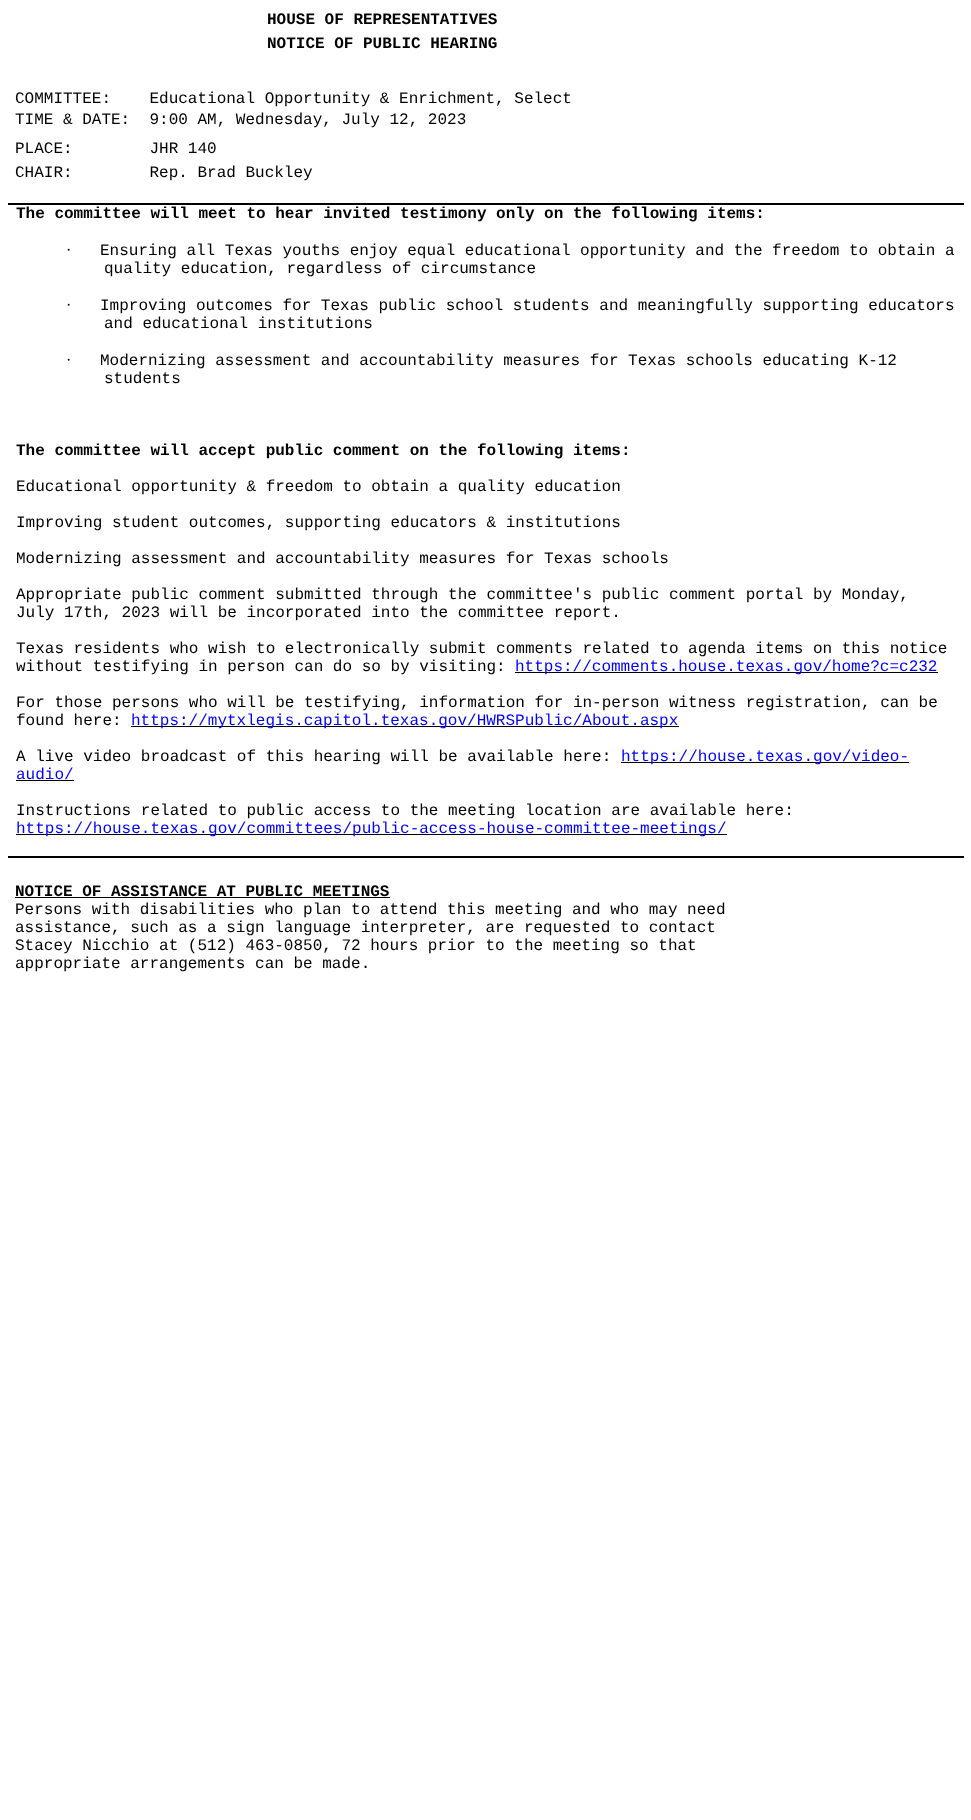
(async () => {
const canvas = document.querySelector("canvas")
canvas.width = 971
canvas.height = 1820
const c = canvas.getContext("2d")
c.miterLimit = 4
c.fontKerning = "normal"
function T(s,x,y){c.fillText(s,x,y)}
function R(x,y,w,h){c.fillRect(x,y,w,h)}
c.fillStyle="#fff"
R(0,0,971,1820)
c.font="bold 16px Liberation Mono"
c.fillStyle="#000"
T("HOUSE OF REPRESENTATIVES",267,24)
T("NOTICE OF PUBLIC HEARING",267,48)
c.font="16px Liberation Mono"
T("COMMITTEE:    Educational Opportunity & Enrichment, Select",15,103)
T("TIME & DATE:  9:00 AM, Wednesday, July 12, 2023",15,124)
T("PLACE:        JHR 140",15,153)
T("CHAIR:        Rep. Brad Buckley",15,177)
R(8,203,956,2)
c.font="bold 16px Liberation Mono"
T("The committee will meet to hear invited testimony only on the following items:",16,218)
c.font="16px Liberation Serif"
T("·",66,255)
c.font="16px Liberation Mono"
T("Ensuring all Texas youths enjoy equal educational opportunity and the freedom to obtain a",100,255)
T("quality education, regardless of circumstance",104,273)
c.font="16px Liberation Serif"
T("·",66,310)
c.font="16px Liberation Mono"
T("Improving outcomes for Texas public school students and meaningfully supporting educators",100,310)
T("and educational institutions",104,328)
c.font="16px Liberation Serif"
T("·",66,365)
c.font="16px Liberation Mono"
T("Modernizing assessment and accountability measures for Texas schools educating K-12",100,365)
T("students",104,383)
c.font="bold 16px Liberation Mono"
T("The committee will accept public comment on the following items:",16,455)
c.font="16px Liberation Mono"
T("Educational opportunity & freedom to obtain a quality education",16,491)
T("Improving student outcomes, supporting educators & institutions",16,527)
T("Modernizing assessment and accountability measures for Texas schools",16,563)
T("Appropriate public comment submitted through the committee's public comment portal by Monday,",16,599)
T("July 17th, 2023 will be incorporated into the committee report.",16,617)
T("Texas residents who wish to electronically submit comments related to agenda items on this notice",16,653)
T("without testifying in person can do so by visiting:",16,671)
R(515,672,423,1)
c.fillStyle="#00f"
T("https://comments.house.texas.gov/home?c=c232",515,671)
c.fillStyle="#000"
R(8,856,956,2)
T("For those persons who will be testifying, information for in-person witness registration, can be",16,707)
T("found here:",16,725)
R(131,726,548,1)
c.fillStyle="#00f"
T("https://mytxlegis.capitol.texas.gov/HWRSPublic/About.aspx",131,725)
c.fillStyle="#000"
T("A live video broadcast of this hearing will be available here:",16,761)
R(621,762,288,1)
c.fillStyle="#00f"
T("https://house.texas.gov/video-",621,761)
T("audio/",16,779)
c.fillStyle="#000"
R(16,780,58,1)
T("Instructions related to public access to the meeting location are available here:",16,815)
R(16,834,711,1)
c.fillStyle="#00f"
T("https://house.texas.gov/committees/public-access-house-committee-meetings/",16,833)
c.font="bold 16px Liberation Mono"
c.fillStyle="#000"
T("NOTICE OF ASSISTANCE AT PUBLIC MEETINGS",15,896)
R(15,897,375,1)
c.font="16px Liberation Mono"
T("Persons with disabilities who plan to attend this meeting and who may need",15,914)
T("assistance, such as a sign language interpreter, are requested to contact",15,932)
T("Stacey Nicchio at (512) 463-0850, 72 hours prior to the meeting so that",15,950)
T("appropriate arrangements can be made.",15,968)
})()
